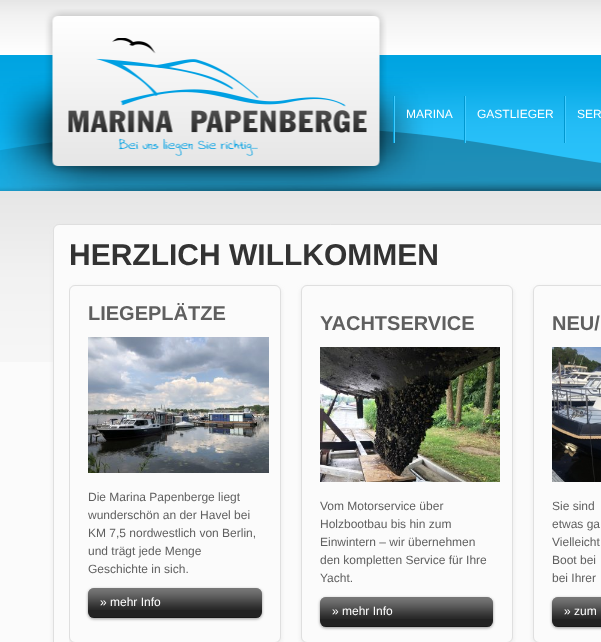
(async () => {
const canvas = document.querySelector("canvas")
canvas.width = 601
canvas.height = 642
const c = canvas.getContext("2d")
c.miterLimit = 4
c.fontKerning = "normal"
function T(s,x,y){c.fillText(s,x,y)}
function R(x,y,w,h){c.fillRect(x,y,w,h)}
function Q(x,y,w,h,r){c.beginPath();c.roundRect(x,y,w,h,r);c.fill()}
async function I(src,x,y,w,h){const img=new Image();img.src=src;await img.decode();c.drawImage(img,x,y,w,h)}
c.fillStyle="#fbfbfb"
R(0,0,601,642)
await I("1.png",0,0,601,362)
await I("2.png",0,9,601,182)
await I("3.png",393,96,2,47)
c.font="12px Liberation Sans"
c.fillStyle="#fff"
T("MARINA",406,118)
await I("3.png",464,96,2,47)
T("GASTLIEGER",477,118)
await I("3.png",564,96,2,47)
T("SER",577,118)
c.fillStyle="#e8e8e8"
c.filter="blur(2px)"
c.beginPath()
c.roundRect(53,226,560,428,6)
c.fill()
c.filter="none"
c.fillStyle="#fbfbfb"
c.beginPath()
c.roundRect(53.5,224.5,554,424,5.5)
c.fill()
c.strokeStyle="#dfdfdf"
c.stroke()
c.font="bold 30px Liberation Sans"
c.fillStyle="#333"
T("HERZLICH WILLKOMMEN",69,265)
c.save()
c.beginPath()
c.rect(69,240,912,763)
c.clip()
c.fillStyle="#e8e8e8"
c.filter="blur(2px)"
c.beginPath()
c.roundRect(69,287,212,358,6)
c.fill()
c.filter="none"
c.restore()
c.fillStyle="#fbfbfb"
c.beginPath()
c.roundRect(69.5,285.5,211,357,5.5)
c.fill()
c.stroke()
c.font="bold 20px Liberation Sans"
c.fillStyle="#5f5f5f"
T("LIEGEPLÄTZE",88,320)
await I("4.png",88,337,181,136)
c.font="12px Liberation Sans"
T("Die Marina Papenberge liegt",88,501)
T("wunderschön an der Havel bei",88,519)
T("KM 7,5 nordwestlich von Berlin,",88,537)
T("und trägt jede Menge",88,555)
T("Geschichte in sich.",88,573)
c.fillStyle="#00000066"
c.filter="blur(1.5px)"
c.beginPath()
c.roundRect(88,589,174,30,6)
c.fill()
c.filter="none"
c.fillStyle="#222"
Q(88,588,174,30,6)
await I("5.png",88,588,174,22)
c.fillStyle="#00000040"
R(91,617,168,1)
c.fillStyle="#fff"
T("» mehr Info",100,606)
c.fillStyle="#e8e8e8"
c.filter="blur(2px)"
c.beginPath()
c.roundRect(301,287,212,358,6)
c.fill()
c.filter="none"
c.fillStyle="#fbfbfb"
c.beginPath()
c.roundRect(301.5,285.5,211,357,5.5)
c.fill()
c.stroke()
c.font="bold 20px Liberation Sans"
c.fillStyle="#5f5f5f"
T("YACHTSERVICE",320,330)
await I("6.png",320,347,180,135)
c.font="12px Liberation Sans"
T("Vom Motorservice über",320,510)
T("Holzbootbau bis hin zum",320,528)
T("Einwintern – wir übernehmen",320,546)
T("den kompletten Service für Ihre",320,564)
T("Yacht.",320,582)
c.fillStyle="#00000066"
c.filter="blur(1.5px)"
c.beginPath()
c.roundRect(320,598,173,30,6)
c.fill()
c.filter="none"
c.fillStyle="#222"
Q(320,597,173,30,6)
await I("7.png",320,597,173,22)
c.fillStyle="#00000040"
R(323,626,167,1)
c.fillStyle="#fff"
T("» mehr Info",332,615)
c.fillStyle="#e8e8e8"
c.filter="blur(2px)"
c.beginPath()
c.roundRect(533,287,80,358,6)
c.fill()
c.filter="none"
c.fillStyle="#fbfbfb"
c.beginPath()
c.roundRect(533.5,285.5,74,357,5.5)
c.fill()
c.stroke()
c.font="bold 20px Liberation Sans"
c.fillStyle="#5f5f5f"
T("NEU/",552,330)
await I("8.png",552,347,49,135)
c.font="12px Liberation Sans"
T("Sie sind",552,510)
T("etwas ga",552,528)
T("Vielleicht",552,546)
T("Boot bei",552,564)
T("bei Ihrer",552,582)
c.fillStyle="#00000066"
c.filter="blur(1.5px)"
c.beginPath()
c.roundRect(552,598,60,30,6)
c.fill()
c.filter="none"
c.fillStyle="#222"
Q(552,597,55,30,6)
await I("9.png",552,597,49,22)
c.fillStyle="#00000040"
R(555,626,46,1)
c.fillStyle="#fff"
T("» zum",564,615)
})()
